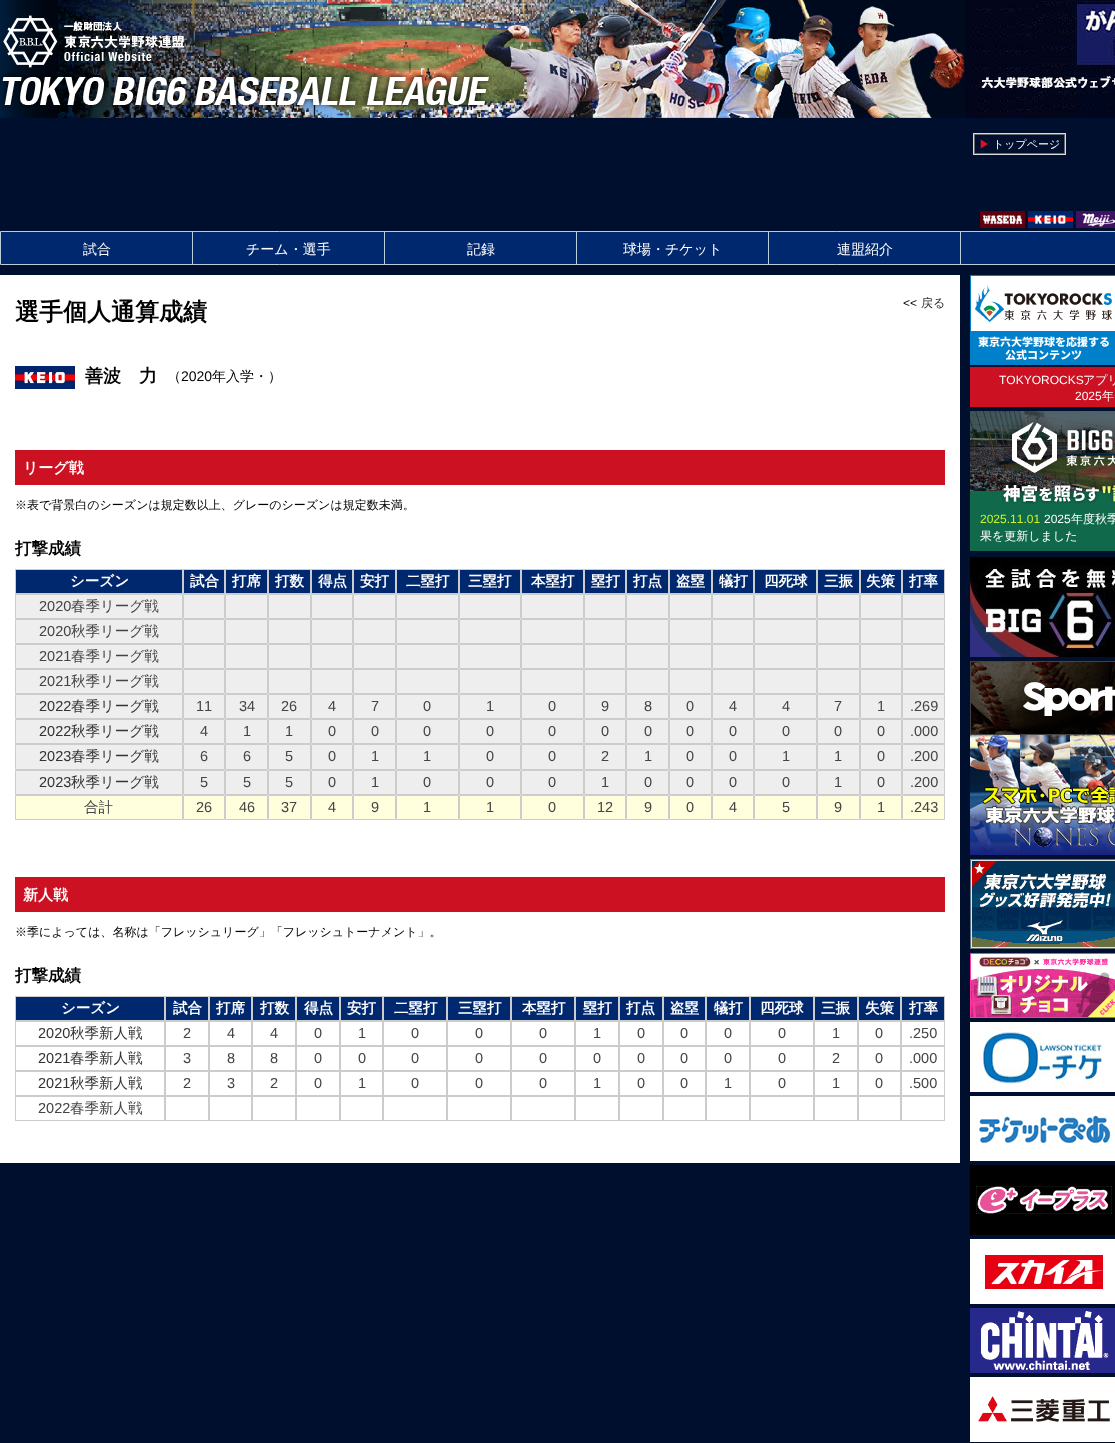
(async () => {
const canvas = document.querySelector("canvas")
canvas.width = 1115
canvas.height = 1443
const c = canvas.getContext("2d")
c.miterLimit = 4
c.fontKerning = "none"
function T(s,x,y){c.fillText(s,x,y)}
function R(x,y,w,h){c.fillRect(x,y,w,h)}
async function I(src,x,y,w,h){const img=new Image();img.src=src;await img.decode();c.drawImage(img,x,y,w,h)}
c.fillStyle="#000f2d"
R(0,0,1115,1443)
await I("1.png",965,0,150,118)
await I("2.png",0,0,965,118)
c.strokeStyle="#ddd"
c.strokeRect(973.5,133.5,92,21)
c.strokeStyle="#666"
c.strokeRect(974.5,134.5,90,19)
c.font="500 11px WenQuanYi Zen Hei"
c.fillStyle="#d12"
T("▶︎",979,148)
c.fillStyle="#fff"
T("トップページ",993,148)
await I("3.png",980,211,45,17)
await I("4.png",1028,211,45,17)
await I("5.png",1076,211,39,17)
c.fillStyle="#00286e"
c.beginPath()
c.rect(.5,231.5,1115,33)
c.fill()
c.strokeStyle="#bcd"
c.stroke()
c.fillStyle="#bcd"
R(192,232,1,32)
c.font="500 14px WenQuanYi Zen Hei"
c.fillStyle="#fff"
T("試合",83,254)
c.fillStyle="#bcd"
R(384,232,1,32)
c.fillStyle="#fff"
T("チーム・選手",246,254)
c.fillStyle="#bcd"
R(576,232,1,32)
c.fillStyle="#fff"
T("記録",467,254)
c.fillStyle="#bcd"
R(768,232,1,32)
c.fillStyle="#fff"
T("球場・チケット",623,254)
c.fillStyle="#bcd"
R(960,232,1,32)
c.fillStyle="#fff"
T("連盟紹介",837,254)
R(0,275,960,888)
c.font="bold 24px WenQuanYi Zen Hei"
c.fillStyle="#000"
T("選手個人通算成績",15,320)
c.font="12px Liberation Sans"
T("<<",903,307)
c.font="500 12px WenQuanYi Zen Hei"
c.fillStyle="#333"
T("戻る",921,307)
await I("6.png",15,366,60,23)
c.font="bold 18px WenQuanYi Zen Hei"
c.fillStyle="#000"
T("善波　力",85,382)
c.font="500 14px WenQuanYi Zen Hei"
T("（",167,381)
c.font="14px Liberation Sans"
T("2020",181,381)
c.font="500 14px WenQuanYi Zen Hei"
T("年入学・）",212,381)
c.fillStyle="#c12"
R(15,450,930,35)
c.font="bold 15px WenQuanYi Zen Hei"
c.fillStyle="#fff"
T("リーグ戦",23,473)
c.font="500 12px WenQuanYi Zen Hei"
c.fillStyle="#000"
T("※表で背景白のシーズンは規定数以上、グレーのシーズンは規定数未満。",15,509)
c.font="bold 16.5px WenQuanYi Zen Hei"
T("打撃成績",15,554)
c.fillStyle="#00286e"
c.beginPath()
c.rect(15.5,569.5,167,24)
c.fill()
c.strokeStyle="#ccc"
c.stroke()
c.font="bold 14.5px WenQuanYi Zen Hei"
c.fillStyle="#fff"
T("シーズン",70,586)
c.fillStyle="#00286e"
c.beginPath()
c.rect(183.5,569.5,41,24)
c.fill()
c.stroke()
c.fillStyle="#fff"
T("試合",190,586)
c.fillStyle="#00286e"
c.beginPath()
c.rect(225.5,569.5,42,24)
c.fill()
c.stroke()
c.fillStyle="#fff"
T("打席",232,586)
c.fillStyle="#00286e"
c.beginPath()
c.rect(268.5,569.5,42,24)
c.fill()
c.stroke()
c.fillStyle="#fff"
T("打数",275,586)
c.fillStyle="#00286e"
c.beginPath()
c.rect(311.5,569.5,41,24)
c.fill()
c.stroke()
c.fillStyle="#fff"
T("得点",318,586)
c.fillStyle="#00286e"
c.beginPath()
c.rect(353.5,569.5,42,24)
c.fill()
c.stroke()
c.fillStyle="#fff"
T("安打",360,586)
c.fillStyle="#00286e"
c.beginPath()
c.rect(396.5,569.5,62,24)
c.fill()
c.stroke()
c.fillStyle="#fff"
T("二塁打",406,586)
c.fillStyle="#00286e"
c.beginPath()
c.rect(459.5,569.5,61,24)
c.fill()
c.stroke()
c.fillStyle="#fff"
T("三塁打",468,586)
c.fillStyle="#00286e"
c.beginPath()
c.rect(521.5,569.5,62,24)
c.fill()
c.stroke()
c.fillStyle="#fff"
T("本塁打",531,586)
c.fillStyle="#00286e"
c.beginPath()
c.rect(584.5,569.5,41,24)
c.fill()
c.stroke()
c.fillStyle="#fff"
T("塁打",591,586)
c.fillStyle="#00286e"
c.beginPath()
c.rect(626.5,569.5,42,24)
c.fill()
c.stroke()
c.fillStyle="#fff"
T("打点",633,586)
c.fillStyle="#00286e"
c.beginPath()
c.rect(669.5,569.5,42,24)
c.fill()
c.stroke()
c.fillStyle="#fff"
T("盗塁",676,586)
c.fillStyle="#00286e"
c.beginPath()
c.rect(712.5,569.5,41,24)
c.fill()
c.stroke()
c.fillStyle="#fff"
T("犠打",719,586)
c.fillStyle="#00286e"
c.beginPath()
c.rect(754.5,569.5,62,24)
c.fill()
c.stroke()
c.fillStyle="#fff"
T("四死球",764,586)
c.fillStyle="#00286e"
c.beginPath()
c.rect(817.5,569.5,42,24)
c.fill()
c.stroke()
c.fillStyle="#fff"
T("三振",824,586)
c.fillStyle="#00286e"
c.beginPath()
c.rect(860.5,569.5,41,24)
c.fill()
c.stroke()
c.fillStyle="#fff"
T("失策",866,586)
c.fillStyle="#00286e"
c.beginPath()
c.rect(902.5,569.5,42,24)
c.fill()
c.stroke()
c.fillStyle="#fff"
T("打率",909,586)
c.fillStyle="#eee"
c.beginPath()
c.rect(15.5,594.5,167,24)
c.fill()
c.stroke()
c.font="14.5px Liberation Sans"
c.fillStyle="#444"
T("2020",39,611)
c.font="500 14.5px WenQuanYi Zen Hei"
T("春季リーグ戦",71,611)
c.fillStyle="#eee"
c.beginPath()
c.rect(183.5,594.5,41,24)
c.fill()
c.stroke()
c.beginPath()
c.rect(225.5,594.5,42,24)
c.fill()
c.stroke()
c.beginPath()
c.rect(268.5,594.5,42,24)
c.fill()
c.stroke()
c.beginPath()
c.rect(311.5,594.5,41,24)
c.fill()
c.stroke()
c.beginPath()
c.rect(353.5,594.5,42,24)
c.fill()
c.stroke()
c.beginPath()
c.rect(396.5,594.5,62,24)
c.fill()
c.stroke()
c.beginPath()
c.rect(459.5,594.5,61,24)
c.fill()
c.stroke()
c.beginPath()
c.rect(521.5,594.5,62,24)
c.fill()
c.stroke()
c.beginPath()
c.rect(584.5,594.5,41,24)
c.fill()
c.stroke()
c.beginPath()
c.rect(626.5,594.5,42,24)
c.fill()
c.stroke()
c.beginPath()
c.rect(669.5,594.5,42,24)
c.fill()
c.stroke()
c.beginPath()
c.rect(712.5,594.5,41,24)
c.fill()
c.stroke()
c.beginPath()
c.rect(754.5,594.5,62,24)
c.fill()
c.stroke()
c.beginPath()
c.rect(817.5,594.5,42,24)
c.fill()
c.stroke()
c.beginPath()
c.rect(860.5,594.5,41,24)
c.fill()
c.stroke()
c.beginPath()
c.rect(902.5,594.5,42,24)
c.fill()
c.stroke()
c.beginPath()
c.rect(15.5,619.5,167,24)
c.fill()
c.stroke()
c.font="14.5px Liberation Sans"
c.fillStyle="#444"
T("2020",39,636)
c.font="500 14.5px WenQuanYi Zen Hei"
T("秋季リーグ戦",71,636)
c.fillStyle="#eee"
c.beginPath()
c.rect(183.5,619.5,41,24)
c.fill()
c.stroke()
c.beginPath()
c.rect(225.5,619.5,42,24)
c.fill()
c.stroke()
c.beginPath()
c.rect(268.5,619.5,42,24)
c.fill()
c.stroke()
c.beginPath()
c.rect(311.5,619.5,41,24)
c.fill()
c.stroke()
c.beginPath()
c.rect(353.5,619.5,42,24)
c.fill()
c.stroke()
c.beginPath()
c.rect(396.5,619.5,62,24)
c.fill()
c.stroke()
c.beginPath()
c.rect(459.5,619.5,61,24)
c.fill()
c.stroke()
c.beginPath()
c.rect(521.5,619.5,62,24)
c.fill()
c.stroke()
c.beginPath()
c.rect(584.5,619.5,41,24)
c.fill()
c.stroke()
c.beginPath()
c.rect(626.5,619.5,42,24)
c.fill()
c.stroke()
c.beginPath()
c.rect(669.5,619.5,42,24)
c.fill()
c.stroke()
c.beginPath()
c.rect(712.5,619.5,41,24)
c.fill()
c.stroke()
c.beginPath()
c.rect(754.5,619.5,62,24)
c.fill()
c.stroke()
c.beginPath()
c.rect(817.5,619.5,42,24)
c.fill()
c.stroke()
c.beginPath()
c.rect(860.5,619.5,41,24)
c.fill()
c.stroke()
c.beginPath()
c.rect(902.5,619.5,42,24)
c.fill()
c.stroke()
c.beginPath()
c.rect(15.5,644.5,167,24)
c.fill()
c.stroke()
c.font="14.5px Liberation Sans"
c.fillStyle="#444"
T("2021",39,661)
c.font="500 14.5px WenQuanYi Zen Hei"
T("春季リーグ戦",71,661)
c.fillStyle="#eee"
c.beginPath()
c.rect(183.5,644.5,41,24)
c.fill()
c.stroke()
c.beginPath()
c.rect(225.5,644.5,42,24)
c.fill()
c.stroke()
c.beginPath()
c.rect(268.5,644.5,42,24)
c.fill()
c.stroke()
c.beginPath()
c.rect(311.5,644.5,41,24)
c.fill()
c.stroke()
c.beginPath()
c.rect(353.5,644.5,42,24)
c.fill()
c.stroke()
c.beginPath()
c.rect(396.5,644.5,62,24)
c.fill()
c.stroke()
c.beginPath()
c.rect(459.5,644.5,61,24)
c.fill()
c.stroke()
c.beginPath()
c.rect(521.5,644.5,62,24)
c.fill()
c.stroke()
c.beginPath()
c.rect(584.5,644.5,41,24)
c.fill()
c.stroke()
c.beginPath()
c.rect(626.5,644.5,42,24)
c.fill()
c.stroke()
c.beginPath()
c.rect(669.5,644.5,42,24)
c.fill()
c.stroke()
c.beginPath()
c.rect(712.5,644.5,41,24)
c.fill()
c.stroke()
c.beginPath()
c.rect(754.5,644.5,62,24)
c.fill()
c.stroke()
c.beginPath()
c.rect(817.5,644.5,42,24)
c.fill()
c.stroke()
c.beginPath()
c.rect(860.5,644.5,41,24)
c.fill()
c.stroke()
c.beginPath()
c.rect(902.5,644.5,42,24)
c.fill()
c.stroke()
c.beginPath()
c.rect(15.5,669.5,167,24)
c.fill()
c.stroke()
c.font="14.5px Liberation Sans"
c.fillStyle="#444"
T("2021",39,686)
c.font="500 14.5px WenQuanYi Zen Hei"
T("秋季リーグ戦",71,686)
c.fillStyle="#eee"
c.beginPath()
c.rect(183.5,669.5,41,24)
c.fill()
c.stroke()
c.beginPath()
c.rect(225.5,669.5,42,24)
c.fill()
c.stroke()
c.beginPath()
c.rect(268.5,669.5,42,24)
c.fill()
c.stroke()
c.beginPath()
c.rect(311.5,669.5,41,24)
c.fill()
c.stroke()
c.beginPath()
c.rect(353.5,669.5,42,24)
c.fill()
c.stroke()
c.beginPath()
c.rect(396.5,669.5,62,24)
c.fill()
c.stroke()
c.beginPath()
c.rect(459.5,669.5,61,24)
c.fill()
c.stroke()
c.beginPath()
c.rect(521.5,669.5,62,24)
c.fill()
c.stroke()
c.beginPath()
c.rect(584.5,669.5,41,24)
c.fill()
c.stroke()
c.beginPath()
c.rect(626.5,669.5,42,24)
c.fill()
c.stroke()
c.beginPath()
c.rect(669.5,669.5,42,24)
c.fill()
c.stroke()
c.beginPath()
c.rect(712.5,669.5,41,24)
c.fill()
c.stroke()
c.beginPath()
c.rect(754.5,669.5,62,24)
c.fill()
c.stroke()
c.beginPath()
c.rect(817.5,669.5,42,24)
c.fill()
c.stroke()
c.beginPath()
c.rect(860.5,669.5,41,24)
c.fill()
c.stroke()
c.beginPath()
c.rect(902.5,669.5,42,24)
c.fill()
c.stroke()
c.beginPath()
c.rect(15.5,694.5,167,24)
c.fill()
c.stroke()
c.font="14.5px Liberation Sans"
c.fillStyle="#333"
T("2022",39,711)
c.font="500 14.5px WenQuanYi Zen Hei"
T("春季リーグ戦",71,711)
c.fillStyle="#eee"
c.beginPath()
c.rect(183.5,694.5,41,24)
c.fill()
c.stroke()
c.font="14.5px Liberation Sans"
c.fillStyle="#444"
T("11",196,711)
c.fillStyle="#eee"
c.beginPath()
c.rect(225.5,694.5,42,24)
c.fill()
c.stroke()
c.fillStyle="#444"
T("34",239,711)
c.fillStyle="#eee"
c.beginPath()
c.rect(268.5,694.5,42,24)
c.fill()
c.stroke()
c.fillStyle="#444"
T("26",281,711)
c.fillStyle="#eee"
c.beginPath()
c.rect(311.5,694.5,41,24)
c.fill()
c.stroke()
c.fillStyle="#444"
T("4",328,711)
c.fillStyle="#eee"
c.beginPath()
c.rect(353.5,694.5,42,24)
c.fill()
c.stroke()
c.fillStyle="#444"
T("7",371,711)
c.fillStyle="#eee"
c.beginPath()
c.rect(396.5,694.5,62,24)
c.fill()
c.stroke()
c.fillStyle="#444"
T("0",423,711)
c.fillStyle="#eee"
c.beginPath()
c.rect(459.5,694.5,61,24)
c.fill()
c.stroke()
c.fillStyle="#444"
T("1",486,711)
c.fillStyle="#eee"
c.beginPath()
c.rect(521.5,694.5,62,24)
c.fill()
c.stroke()
c.fillStyle="#444"
T("0",548,711)
c.fillStyle="#eee"
c.beginPath()
c.rect(584.5,694.5,41,24)
c.fill()
c.stroke()
c.fillStyle="#444"
T("9",601,711)
c.fillStyle="#eee"
c.beginPath()
c.rect(626.5,694.5,42,24)
c.fill()
c.stroke()
c.fillStyle="#444"
T("8",644,711)
c.fillStyle="#eee"
c.beginPath()
c.rect(669.5,694.5,42,24)
c.fill()
c.stroke()
c.fillStyle="#444"
T("0",686,711)
c.fillStyle="#eee"
c.beginPath()
c.rect(712.5,694.5,41,24)
c.fill()
c.stroke()
c.fillStyle="#444"
T("4",729,711)
c.fillStyle="#eee"
c.beginPath()
c.rect(754.5,694.5,62,24)
c.fill()
c.stroke()
c.fillStyle="#444"
T("4",782,711)
c.fillStyle="#eee"
c.beginPath()
c.rect(817.5,694.5,42,24)
c.fill()
c.stroke()
c.fillStyle="#444"
T("7",834,711)
c.fillStyle="#eee"
c.beginPath()
c.rect(860.5,694.5,41,24)
c.fill()
c.stroke()
c.fillStyle="#444"
T("1",877,711)
c.fillStyle="#eee"
c.beginPath()
c.rect(902.5,694.5,42,24)
c.fill()
c.stroke()
c.fillStyle="#444"
T(".269",910,711)
c.fillStyle="#eee"
c.beginPath()
c.rect(15.5,719.5,167,24)
c.fill()
c.stroke()
c.fillStyle="#333"
T("2022",39,736)
c.font="500 14.5px WenQuanYi Zen Hei"
T("秋季リーグ戦",71,736)
c.fillStyle="#eee"
c.beginPath()
c.rect(183.5,719.5,41,24)
c.fill()
c.stroke()
c.font="14.5px Liberation Sans"
c.fillStyle="#444"
T("4",200,736)
c.fillStyle="#eee"
c.beginPath()
c.rect(225.5,719.5,42,24)
c.fill()
c.stroke()
c.fillStyle="#444"
T("1",243,736)
c.fillStyle="#eee"
c.beginPath()
c.rect(268.5,719.5,42,24)
c.fill()
c.stroke()
c.fillStyle="#444"
T("1",285,736)
c.fillStyle="#eee"
c.beginPath()
c.rect(311.5,719.5,41,24)
c.fill()
c.stroke()
c.fillStyle="#444"
T("0",328,736)
c.fillStyle="#eee"
c.beginPath()
c.rect(353.5,719.5,42,24)
c.fill()
c.stroke()
c.fillStyle="#444"
T("0",371,736)
c.fillStyle="#eee"
c.beginPath()
c.rect(396.5,719.5,62,24)
c.fill()
c.stroke()
c.fillStyle="#444"
T("0",423,736)
c.fillStyle="#eee"
c.beginPath()
c.rect(459.5,719.5,61,24)
c.fill()
c.stroke()
c.fillStyle="#444"
T("0",486,736)
c.fillStyle="#eee"
c.beginPath()
c.rect(521.5,719.5,62,24)
c.fill()
c.stroke()
c.fillStyle="#444"
T("0",548,736)
c.fillStyle="#eee"
c.beginPath()
c.rect(584.5,719.5,41,24)
c.fill()
c.stroke()
c.fillStyle="#444"
T("0",601,736)
c.fillStyle="#eee"
c.beginPath()
c.rect(626.5,719.5,42,24)
c.fill()
c.stroke()
c.fillStyle="#444"
T("0",644,736)
c.fillStyle="#eee"
c.beginPath()
c.rect(669.5,719.5,42,24)
c.fill()
c.stroke()
c.fillStyle="#444"
T("0",686,736)
c.fillStyle="#eee"
c.beginPath()
c.rect(712.5,719.5,41,24)
c.fill()
c.stroke()
c.fillStyle="#444"
T("0",729,736)
c.fillStyle="#eee"
c.beginPath()
c.rect(754.5,719.5,62,24)
c.fill()
c.stroke()
c.fillStyle="#444"
T("0",782,736)
c.fillStyle="#eee"
c.beginPath()
c.rect(817.5,719.5,42,24)
c.fill()
c.stroke()
c.fillStyle="#444"
T("0",834,736)
c.fillStyle="#eee"
c.beginPath()
c.rect(860.5,719.5,41,24)
c.fill()
c.stroke()
c.fillStyle="#444"
T("0",877,736)
c.fillStyle="#eee"
c.beginPath()
c.rect(902.5,719.5,42,24)
c.fill()
c.stroke()
c.fillStyle="#444"
T(".000",910,736)
c.fillStyle="#eee"
c.beginPath()
c.rect(15.5,744.5,167,25)
c.fill()
c.stroke()
c.fillStyle="#333"
T("2023",39,761)
c.font="500 14.5px WenQuanYi Zen Hei"
T("春季リーグ戦",71,761)
c.fillStyle="#eee"
c.beginPath()
c.rect(183.5,744.5,41,25)
c.fill()
c.stroke()
c.font="14.5px Liberation Sans"
c.fillStyle="#444"
T("6",200,761)
c.fillStyle="#eee"
c.beginPath()
c.rect(225.5,744.5,42,25)
c.fill()
c.stroke()
c.fillStyle="#444"
T("6",243,761)
c.fillStyle="#eee"
c.beginPath()
c.rect(268.5,744.5,42,25)
c.fill()
c.stroke()
c.fillStyle="#444"
T("5",285,761)
c.fillStyle="#eee"
c.beginPath()
c.rect(311.5,744.5,41,25)
c.fill()
c.stroke()
c.fillStyle="#444"
T("0",328,761)
c.fillStyle="#eee"
c.beginPath()
c.rect(353.5,744.5,42,25)
c.fill()
c.stroke()
c.fillStyle="#444"
T("1",371,761)
c.fillStyle="#eee"
c.beginPath()
c.rect(396.5,744.5,62,25)
c.fill()
c.stroke()
c.fillStyle="#444"
T("1",423,761)
c.fillStyle="#eee"
c.beginPath()
c.rect(459.5,744.5,61,25)
c.fill()
c.stroke()
c.fillStyle="#444"
T("0",486,761)
c.fillStyle="#eee"
c.beginPath()
c.rect(521.5,744.5,62,25)
c.fill()
c.stroke()
c.fillStyle="#444"
T("0",548,761)
c.fillStyle="#eee"
c.beginPath()
c.rect(584.5,744.5,41,25)
c.fill()
c.stroke()
c.fillStyle="#444"
T("2",601,761)
c.fillStyle="#eee"
c.beginPath()
c.rect(626.5,744.5,42,25)
c.fill()
c.stroke()
c.fillStyle="#444"
T("1",644,761)
c.fillStyle="#eee"
c.beginPath()
c.rect(669.5,744.5,42,25)
c.fill()
c.stroke()
c.fillStyle="#444"
T("0",686,761)
c.fillStyle="#eee"
c.beginPath()
c.rect(712.5,744.5,41,25)
c.fill()
c.stroke()
c.fillStyle="#444"
T("0",729,761)
c.fillStyle="#eee"
c.beginPath()
c.rect(754.5,744.5,62,25)
c.fill()
c.stroke()
c.fillStyle="#444"
T("1",782,761)
c.fillStyle="#eee"
c.beginPath()
c.rect(817.5,744.5,42,25)
c.fill()
c.stroke()
c.fillStyle="#444"
T("1",834,761)
c.fillStyle="#eee"
c.beginPath()
c.rect(860.5,744.5,41,25)
c.fill()
c.stroke()
c.fillStyle="#444"
T("0",877,761)
c.fillStyle="#eee"
c.beginPath()
c.rect(902.5,744.5,42,25)
c.fill()
c.stroke()
c.fillStyle="#444"
T(".200",910,761)
c.fillStyle="#eee"
c.beginPath()
c.rect(15.5,770.5,167,24)
c.fill()
c.stroke()
c.fillStyle="#333"
T("2023",39,787)
c.font="500 14.5px WenQuanYi Zen Hei"
T("秋季リーグ戦",71,787)
c.fillStyle="#eee"
c.beginPath()
c.rect(183.5,770.5,41,24)
c.fill()
c.stroke()
c.font="14.5px Liberation Sans"
c.fillStyle="#444"
T("5",200,787)
c.fillStyle="#eee"
c.beginPath()
c.rect(225.5,770.5,42,24)
c.fill()
c.stroke()
c.fillStyle="#444"
T("5",243,787)
c.fillStyle="#eee"
c.beginPath()
c.rect(268.5,770.5,42,24)
c.fill()
c.stroke()
c.fillStyle="#444"
T("5",285,787)
c.fillStyle="#eee"
c.beginPath()
c.rect(311.5,770.5,41,24)
c.fill()
c.stroke()
c.fillStyle="#444"
T("0",328,787)
c.fillStyle="#eee"
c.beginPath()
c.rect(353.5,770.5,42,24)
c.fill()
c.stroke()
c.fillStyle="#444"
T("1",371,787)
c.fillStyle="#eee"
c.beginPath()
c.rect(396.5,770.5,62,24)
c.fill()
c.stroke()
c.fillStyle="#444"
T("0",423,787)
c.fillStyle="#eee"
c.beginPath()
c.rect(459.5,770.5,61,24)
c.fill()
c.stroke()
c.fillStyle="#444"
T("0",486,787)
c.fillStyle="#eee"
c.beginPath()
c.rect(521.5,770.5,62,24)
c.fill()
c.stroke()
c.fillStyle="#444"
T("0",548,787)
c.fillStyle="#eee"
c.beginPath()
c.rect(584.5,770.5,41,24)
c.fill()
c.stroke()
c.fillStyle="#444"
T("1",601,787)
c.fillStyle="#eee"
c.beginPath()
c.rect(626.5,770.5,42,24)
c.fill()
c.stroke()
c.fillStyle="#444"
T("0",644,787)
c.fillStyle="#eee"
c.beginPath()
c.rect(669.5,770.5,42,24)
c.fill()
c.stroke()
c.fillStyle="#444"
T("0",686,787)
c.fillStyle="#eee"
c.beginPath()
c.rect(712.5,770.5,41,24)
c.fill()
c.stroke()
c.fillStyle="#444"
T("0",729,787)
c.fillStyle="#eee"
c.beginPath()
c.rect(754.5,770.5,62,24)
c.fill()
c.stroke()
c.fillStyle="#444"
T("0",782,787)
c.fillStyle="#eee"
c.beginPath()
c.rect(817.5,770.5,42,24)
c.fill()
c.stroke()
c.fillStyle="#444"
T("1",834,787)
c.fillStyle="#eee"
c.beginPath()
c.rect(860.5,770.5,41,24)
c.fill()
c.stroke()
c.fillStyle="#444"
T("0",877,787)
c.fillStyle="#eee"
c.beginPath()
c.rect(902.5,770.5,42,24)
c.fill()
c.stroke()
c.fillStyle="#444"
T(".200",910,787)
c.fillStyle="#ffd"
c.beginPath()
c.rect(15.5,795.5,167,24)
c.fill()
c.stroke()
c.font="500 14.5px WenQuanYi Zen Hei"
c.fillStyle="#444"
T("合計",84,812)
c.fillStyle="#ffd"
c.beginPath()
c.rect(183.5,795.5,41,24)
c.fill()
c.stroke()
c.font="14.5px Liberation Sans"
c.fillStyle="#444"
T("26",196,812)
c.fillStyle="#ffd"
c.beginPath()
c.rect(225.5,795.5,42,24)
c.fill()
c.stroke()
c.fillStyle="#444"
T("46",239,812)
c.fillStyle="#ffd"
c.beginPath()
c.rect(268.5,795.5,42,24)
c.fill()
c.stroke()
c.fillStyle="#444"
T("37",281,812)
c.fillStyle="#ffd"
c.beginPath()
c.rect(311.5,795.5,41,24)
c.fill()
c.stroke()
c.fillStyle="#444"
T("4",328,812)
c.fillStyle="#ffd"
c.beginPath()
c.rect(353.5,795.5,42,24)
c.fill()
c.stroke()
c.fillStyle="#444"
T("9",371,812)
c.fillStyle="#ffd"
c.beginPath()
c.rect(396.5,795.5,62,24)
c.fill()
c.stroke()
c.fillStyle="#444"
T("1",423,812)
c.fillStyle="#ffd"
c.beginPath()
c.rect(459.5,795.5,61,24)
c.fill()
c.stroke()
c.fillStyle="#444"
T("1",486,812)
c.fillStyle="#ffd"
c.beginPath()
c.rect(521.5,795.5,62,24)
c.fill()
c.stroke()
c.fillStyle="#444"
T("0",548,812)
c.fillStyle="#ffd"
c.beginPath()
c.rect(584.5,795.5,41,24)
c.fill()
c.stroke()
c.fillStyle="#444"
T("12",597,812)
c.fillStyle="#ffd"
c.beginPath()
c.rect(626.5,795.5,42,24)
c.fill()
c.stroke()
c.fillStyle="#444"
T("9",644,812)
c.fillStyle="#ffd"
c.beginPath()
c.rect(669.5,795.5,42,24)
c.fill()
c.stroke()
c.fillStyle="#444"
T("0",686,812)
c.fillStyle="#ffd"
c.beginPath()
c.rect(712.5,795.5,41,24)
c.fill()
c.stroke()
c.fillStyle="#444"
T("4",729,812)
c.fillStyle="#ffd"
c.beginPath()
c.rect(754.5,795.5,62,24)
c.fill()
c.stroke()
c.fillStyle="#444"
T("5",782,812)
c.fillStyle="#ffd"
c.beginPath()
c.rect(817.5,795.5,42,24)
c.fill()
c.stroke()
c.fillStyle="#444"
T("9",834,812)
c.fillStyle="#ffd"
c.beginPath()
c.rect(860.5,795.5,41,24)
c.fill()
c.stroke()
c.fillStyle="#444"
T("1",877,812)
c.fillStyle="#ffd"
c.beginPath()
c.rect(902.5,795.5,42,24)
c.fill()
c.stroke()
c.fillStyle="#444"
T(".243",910,812)
c.fillStyle="#c12"
R(15,877,930,35)
c.font="bold 15px WenQuanYi Zen Hei"
c.fillStyle="#fff"
T("新人戦",23,900)
c.font="500 12px WenQuanYi Zen Hei"
c.fillStyle="#000"
T("※季によっては、名称は「フレッシュリーグ」「フレッシュトーナメント」。",15,936)
c.font="bold 16.5px WenQuanYi Zen Hei"
T("打撃成績",15,981)
c.fillStyle="#00286e"
c.beginPath()
c.rect(15.5,996.5,149,24)
c.fill()
c.stroke()
c.font="bold 14.5px WenQuanYi Zen Hei"
c.fillStyle="#fff"
T("シーズン",61,1013)
c.fillStyle="#00286e"
c.beginPath()
c.rect(165.5,996.5,43,24)
c.fill()
c.stroke()
c.fillStyle="#fff"
T("試合",173,1013)
c.fillStyle="#00286e"
c.beginPath()
c.rect(209.5,996.5,42,24)
c.fill()
c.stroke()
c.fillStyle="#fff"
T("打席",216,1013)
c.fillStyle="#00286e"
c.beginPath()
c.rect(252.5,996.5,43,24)
c.fill()
c.stroke()
c.fillStyle="#fff"
T("打数",260,1013)
c.fillStyle="#00286e"
c.beginPath()
c.rect(296.5,996.5,43,24)
c.fill()
c.stroke()
c.fillStyle="#fff"
T("得点",304,1013)
c.fillStyle="#00286e"
c.beginPath()
c.rect(340.5,996.5,42,24)
c.fill()
c.stroke()
c.fillStyle="#fff"
T("安打",347,1013)
c.fillStyle="#00286e"
c.beginPath()
c.rect(383.5,996.5,63,24)
c.fill()
c.stroke()
c.fillStyle="#fff"
T("二塁打",394,1013)
c.fillStyle="#00286e"
c.beginPath()
c.rect(447.5,996.5,63,24)
c.fill()
c.stroke()
c.fillStyle="#fff"
T("三塁打",458,1013)
c.fillStyle="#00286e"
c.beginPath()
c.rect(511.5,996.5,63,24)
c.fill()
c.stroke()
c.fillStyle="#fff"
T("本塁打",522,1013)
c.fillStyle="#00286e"
c.beginPath()
c.rect(575.5,996.5,43,24)
c.fill()
c.stroke()
c.fillStyle="#fff"
T("塁打",583,1013)
c.fillStyle="#00286e"
c.beginPath()
c.rect(619.5,996.5,43,24)
c.fill()
c.stroke()
c.fillStyle="#fff"
T("打点",626,1013)
c.fillStyle="#00286e"
c.beginPath()
c.rect(663.5,996.5,42,24)
c.fill()
c.stroke()
c.fillStyle="#fff"
T("盗塁",670,1013)
c.fillStyle="#00286e"
c.beginPath()
c.rect(706.5,996.5,43,24)
c.fill()
c.stroke()
c.fillStyle="#fff"
T("犠打",714,1013)
c.fillStyle="#00286e"
c.beginPath()
c.rect(750.5,996.5,63,24)
c.fill()
c.stroke()
c.fillStyle="#fff"
T("四死球",760,1013)
c.fillStyle="#00286e"
c.beginPath()
c.rect(814.5,996.5,43,24)
c.fill()
c.stroke()
c.fillStyle="#fff"
T("三振",821,1013)
c.fillStyle="#00286e"
c.beginPath()
c.rect(858.5,996.5,42,24)
c.fill()
c.stroke()
c.fillStyle="#fff"
T("失策",865,1013)
c.fillStyle="#00286e"
c.beginPath()
c.rect(901.5,996.5,43,24)
c.fill()
c.stroke()
c.fillStyle="#fff"
T("打率",909,1013)
c.strokeRect(15.5,1021.5,149,24)
c.font="14.5px Liberation Sans"
c.fillStyle="#333"
T("2020",38,1038)
c.font="500 14.5px WenQuanYi Zen Hei"
T("秋季新人戦",70,1038)
c.strokeRect(165.5,1021.5,43,24)
c.font="14.5px Liberation Sans"
c.fillStyle="#444"
T("2",183,1038)
c.strokeRect(209.5,1021.5,42,24)
T("4",227,1038)
c.strokeRect(252.5,1021.5,43,24)
T("4",270,1038)
c.strokeRect(296.5,1021.5,43,24)
T("0",314,1038)
c.strokeRect(340.5,1021.5,42,24)
T("1",358,1038)
c.strokeRect(383.5,1021.5,63,24)
T("0",411,1038)
c.strokeRect(447.5,1021.5,63,24)
T("0",475,1038)
c.strokeRect(511.5,1021.5,63,24)
T("0",539,1038)
c.strokeRect(575.5,1021.5,43,24)
T("1",593,1038)
c.strokeRect(619.5,1021.5,43,24)
T("0",637,1038)
c.strokeRect(663.5,1021.5,42,24)
T("0",680,1038)
c.strokeRect(706.5,1021.5,43,24)
T("0",724,1038)
c.strokeRect(750.5,1021.5,63,24)
T("0",778,1038)
c.strokeRect(814.5,1021.5,43,24)
T("1",832,1038)
c.strokeRect(858.5,1021.5,42,24)
T("0",875,1038)
c.strokeRect(901.5,1021.5,43,24)
T(".250",909,1038)
c.strokeRect(15.5,1046.5,149,24)
c.fillStyle="#333"
T("2021",38,1063)
c.font="500 14.5px WenQuanYi Zen Hei"
T("春季新人戦",70,1063)
c.strokeRect(165.5,1046.5,43,24)
c.font="14.5px Liberation Sans"
c.fillStyle="#444"
T("3",183,1063)
c.strokeRect(209.5,1046.5,42,24)
T("8",227,1063)
c.strokeRect(252.5,1046.5,43,24)
T("8",270,1063)
c.strokeRect(296.5,1046.5,43,24)
T("0",314,1063)
c.strokeRect(340.5,1046.5,42,24)
T("0",358,1063)
c.strokeRect(383.5,1046.5,63,24)
T("0",411,1063)
c.strokeRect(447.5,1046.5,63,24)
T("0",475,1063)
c.strokeRect(511.5,1046.5,63,24)
T("0",539,1063)
c.strokeRect(575.5,1046.5,43,24)
T("0",593,1063)
c.strokeRect(619.5,1046.5,43,24)
T("0",637,1063)
c.strokeRect(663.5,1046.5,42,24)
T("0",680,1063)
c.strokeRect(706.5,1046.5,43,24)
T("0",724,1063)
c.strokeRect(750.5,1046.5,63,24)
T("0",778,1063)
c.strokeRect(814.5,1046.5,43,24)
T("2",832,1063)
c.strokeRect(858.5,1046.5,42,24)
T("0",875,1063)
c.strokeRect(901.5,1046.5,43,24)
T(".000",909,1063)
c.strokeRect(15.5,1071.5,149,24)
c.fillStyle="#333"
T("2021",38,1088)
c.font="500 14.5px WenQuanYi Zen Hei"
T("秋季新人戦",70,1088)
c.strokeRect(165.5,1071.5,43,24)
c.font="14.5px Liberation Sans"
c.fillStyle="#444"
T("2",183,1088)
c.strokeRect(209.5,1071.5,42,24)
T("3",227,1088)
c.strokeRect(252.5,1071.5,43,24)
T("2",270,1088)
c.strokeRect(296.5,1071.5,43,24)
T("0",314,1088)
c.strokeRect(340.5,1071.5,42,24)
T("1",358,1088)
c.strokeRect(383.5,1071.5,63,24)
T("0",411,1088)
c.strokeRect(447.5,1071.5,63,24)
T("0",475,1088)
c.strokeRect(511.5,1071.5,63,24)
T("0",539,1088)
c.strokeRect(575.5,1071.5,43,24)
T("1",593,1088)
c.strokeRect(619.5,1071.5,43,24)
T("0",637,1088)
c.strokeRect(663.5,1071.5,42,24)
T("0",680,1088)
c.strokeRect(706.5,1071.5,43,24)
T("1",724,1088)
c.strokeRect(750.5,1071.5,63,24)
T("0",778,1088)
c.strokeRect(814.5,1071.5,43,24)
T("1",832,1088)
c.strokeRect(858.5,1071.5,42,24)
T("0",875,1088)
c.strokeRect(901.5,1071.5,43,24)
T(".500",909,1088)
c.strokeRect(15.5,1096.5,149,24)
T("2022",38,1113)
c.font="500 14.5px WenQuanYi Zen Hei"
T("春季新人戦",70,1113)
c.strokeRect(165.5,1096.5,43,24)
c.strokeRect(209.5,1096.5,42,24)
c.strokeRect(252.5,1096.5,43,24)
c.strokeRect(296.5,1096.5,43,24)
c.strokeRect(340.5,1096.5,42,24)
c.strokeRect(383.5,1096.5,63,24)
c.strokeRect(447.5,1096.5,63,24)
c.strokeRect(511.5,1096.5,63,24)
c.strokeRect(575.5,1096.5,43,24)
c.strokeRect(619.5,1096.5,43,24)
c.strokeRect(663.5,1096.5,42,24)
c.strokeRect(706.5,1096.5,43,24)
c.strokeRect(750.5,1096.5,63,24)
c.strokeRect(814.5,1096.5,43,24)
c.strokeRect(858.5,1096.5,42,24)
c.strokeRect(901.5,1096.5,43,24)
await I("7.png",970,275,145,90)
c.fillStyle="#c12"
R(970,367,145,40)
c.font="12px Liberation Sans"
c.fillStyle="#fff"
T("TOKYOROCKS",999,384)
c.font="500 12px WenQuanYi Zen Hei"
T("アプリ",1083,384)
c.font="12px Liberation Sans"
T("2025",1075,400)
c.font="500 12px WenQuanYi Zen Hei"
T("年",1102,400)
await I("8.png",970,411,145,93)
c.fillStyle="#11694c"
R(970,504,145,47)
c.font="12px Liberation Sans"
c.fillStyle="#fff"
T("2025",1044,523)
c.font="500 12px WenQuanYi Zen Hei"
T("年度秋季",1071,523)
T("果を更新しました",980,540)
c.font="12px Liberation Sans"
c.fillStyle="#cbf32a"
T("2025.11.01",980,523)
await I("9.png",970,557,145,100)
await I("10.png",970,661,145,74)
await I("11.png",970,735,145,120)
await I("12.png",970,859,145,90)
await I("13.png",970,953,145,65)
await I("14.png",970,1022,145,70)
await I("15.png",970,1096,145,65)
await I("16.png",970,1165,145,70)
await I("17.png",970,1239,145,65)
await I("18.png",970,1308,145,65)
await I("19.png",970,1377,145,65)
})()
